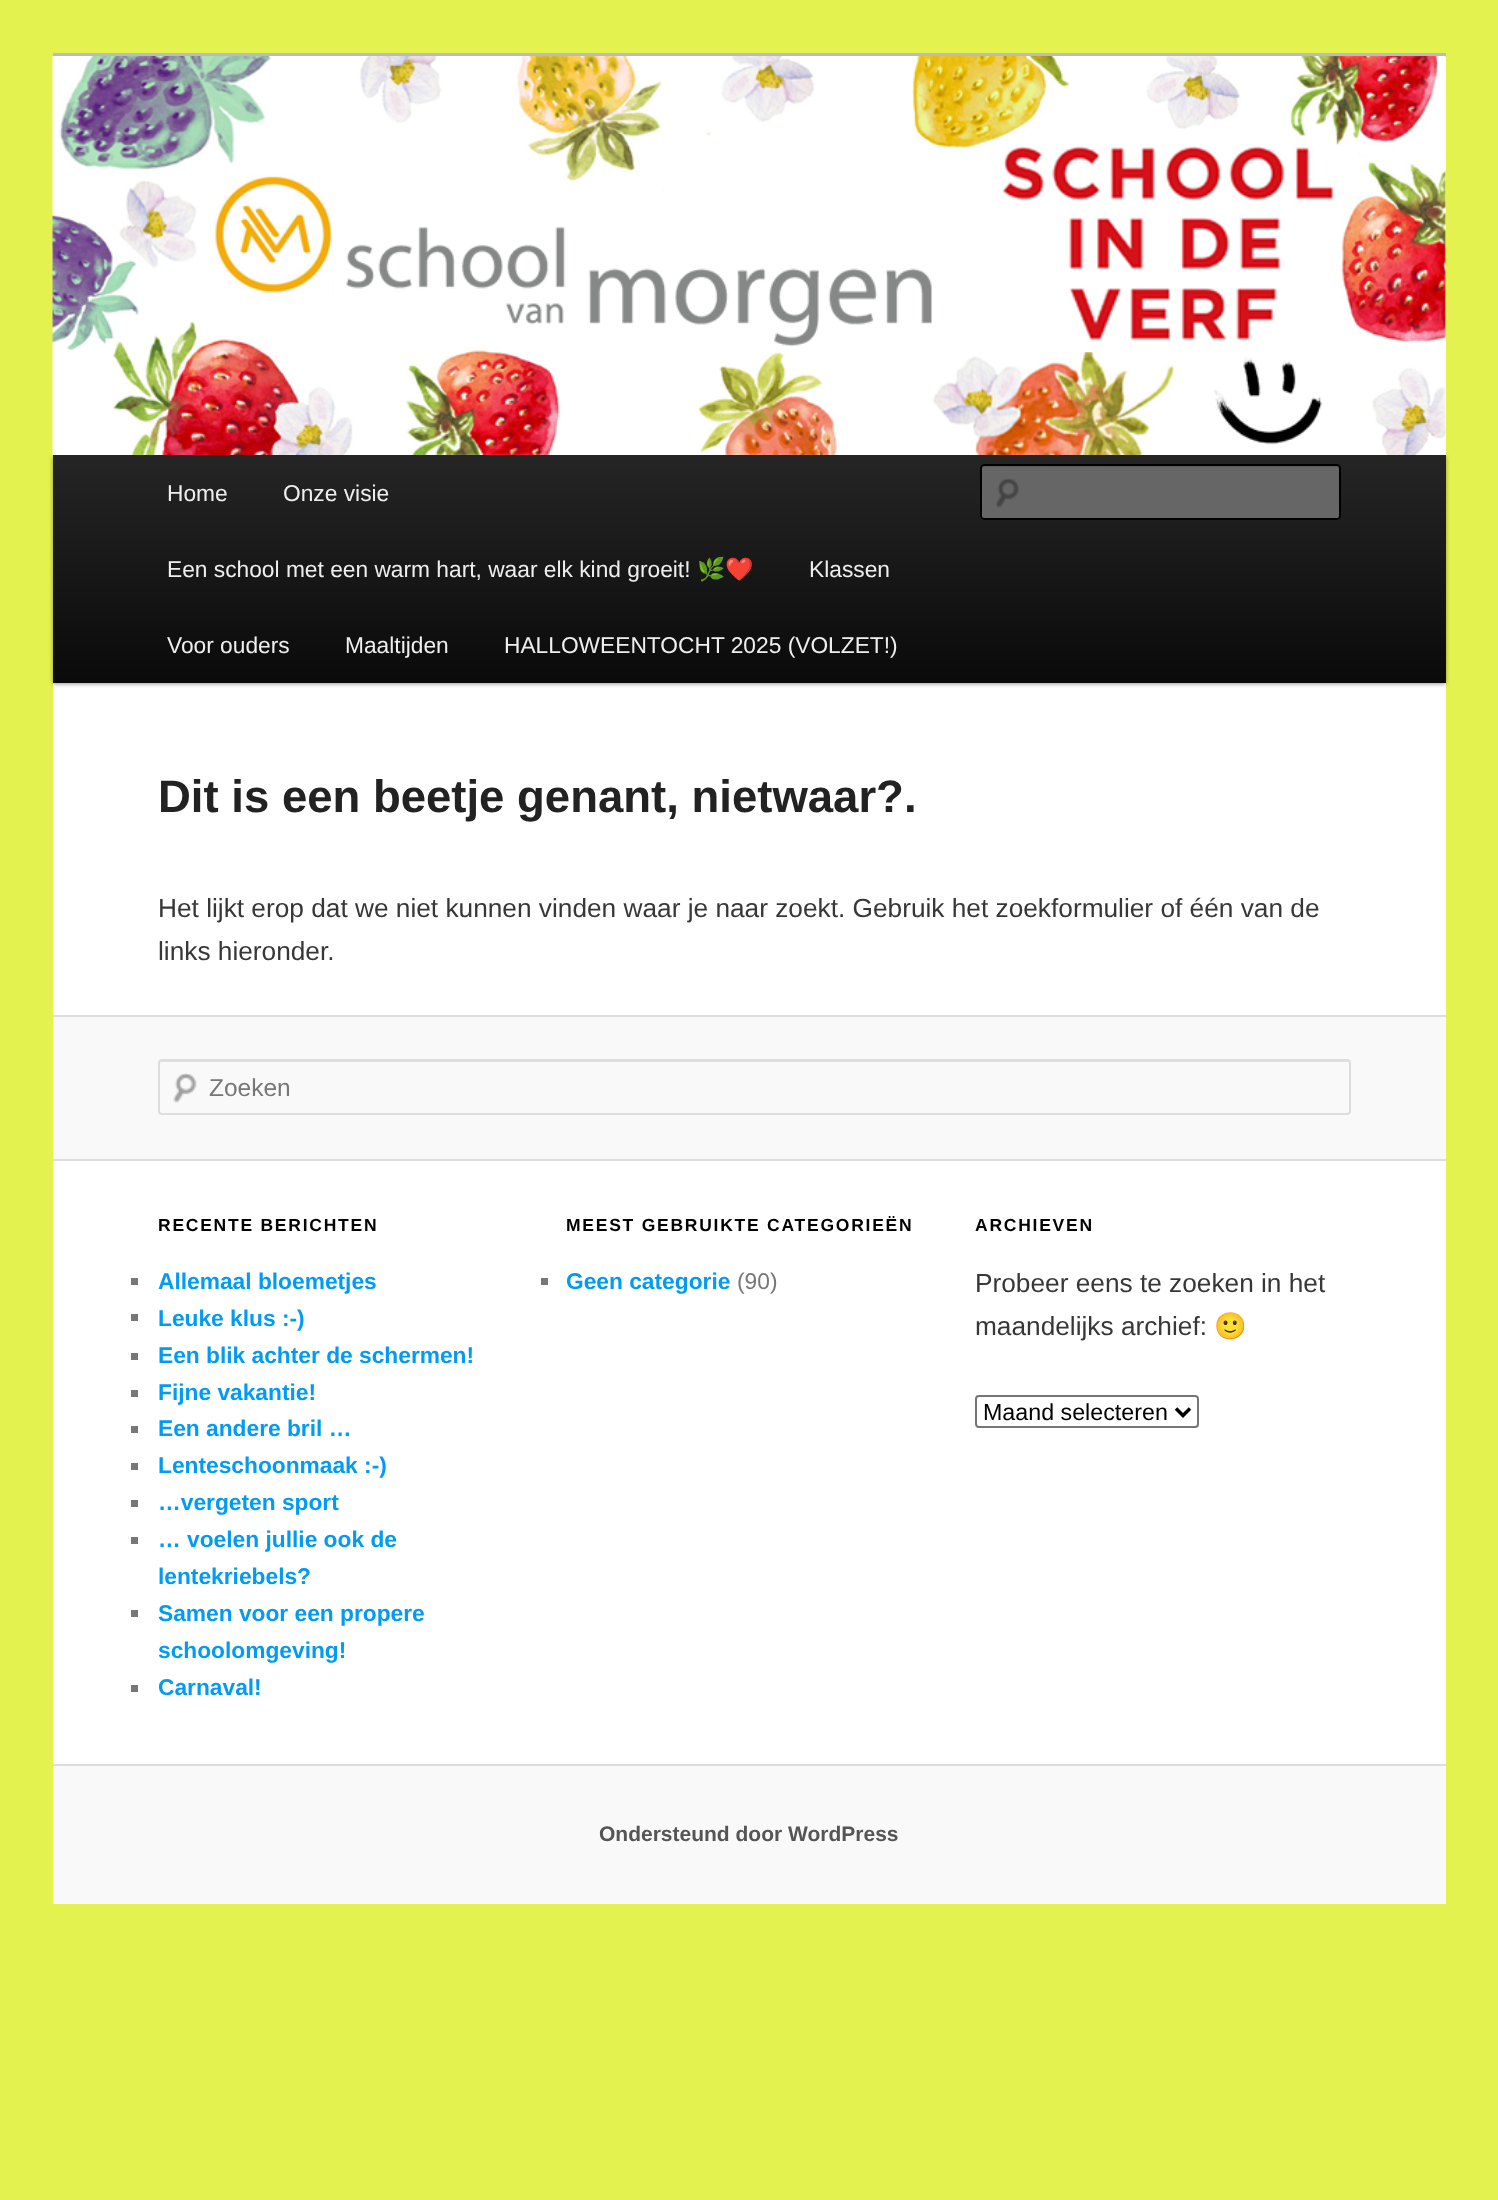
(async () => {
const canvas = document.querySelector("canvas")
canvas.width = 1498
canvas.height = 2200
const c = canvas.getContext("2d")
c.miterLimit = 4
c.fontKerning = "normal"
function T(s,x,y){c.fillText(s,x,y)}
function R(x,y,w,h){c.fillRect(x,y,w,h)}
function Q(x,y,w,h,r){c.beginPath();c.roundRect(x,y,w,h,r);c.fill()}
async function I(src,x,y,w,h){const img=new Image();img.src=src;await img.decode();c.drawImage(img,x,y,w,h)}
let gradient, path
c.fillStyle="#e4f24f"
R(0,0,1498,2200)
c.fillStyle="#fff"
R(53,57,1393,1707)
c.fillStyle="#bbb"
R(53,53,1393,4)
c.fillStyle="#00000066"
c.filter="blur(2px)"
c.beginPath()
c.rect(53,457,1393,227)
c.fill()
c.filter="none"
await I("1.png",52,56,1394,399)
gradient = c.createLinearGradient(749,455,749,683)
gradient.addColorStop(0,"#252525")
gradient.addColorStop(1,"#0a0a0a")
c.fillStyle = gradient
R(53,455,1393,228)
c.font="22.75px Liberation Sans"
c.fillStyle="#eee"
T("Home",167,501)
T("Onze visie",283,501)
T("Een school met een warm hart, waar elk kind groeit!",167,577)
c.font="22.75px Noto Color Emoji"
T("🌿❤️",697,577)
c.font="22.75px Liberation Sans"
T("Klassen",809,577)
T("Voor ouders",167,653)
T("Maaltijden",345,653)
T("HALLOWEENTOCHT 2025 (VOLZET!)",504,653)
c.fillStyle="#666"
Q(980,464,361,56,4)
await I("2.png",996,478,23,30)
c.fillStyle="#5c5c5c"
path = new Path2D("M984 467h353c1 0 2 1 2 2c0-1 0-3-2-3h-353c-2 0-2 2-2 3c0-1 1-2 2-2z")
c.fill(path)
c.beginPath()
c.roundRect(981,465,359,54,3)
c.strokeStyle="#000"
c.lineWidth=2
c.stroke()
c.font="bold 45.5px Liberation Sans"
c.fillStyle="#222"
T("Dit is een beetje genant, nietwaar?.",158,812)
c.font="26.25px Liberation Sans"
c.fillStyle="#373737"
T("Het lijkt erop dat we niet kunnen vinden waar je naar zoekt. Gebruik het zoekformulier of één van de",158,917)
T("links hieronder.",158,960)
c.fillStyle="#f9f9f9"
R(53,1017,1393,142)
c.fillStyle="#ddd"
R(53,1015,1393,2)
R(53,1159,1393,2)
await I("3.png",173,1073,24,30)
c.fillStyle="#e0e0e0"
path = new Path2D("M161 1062h1187l1 2v-2l-2-1h-1186c-1 0-2 1-2 2v1c0-1 1-2 2-2z")
c.fill(path)
c.beginPath()
c.roundRect(159,1060,1191,54,3)
c.strokeStyle="#ddd"
c.stroke()
c.font="24.5px Liberation Sans"
c.fillStyle="#777"
T("Zoeken",209,1096)
c.letterSpacing="1.75px"
c.font="bold 17.5px Liberation Sans"
c.fillStyle="#000"
T("RECENTE BERICHTEN",158,1231)
c.fillStyle="#777"
R(131,1278,7,7)
c.letterSpacing="0px"
c.font="bold 22.75px Liberation Sans"
c.fillStyle="#029bf4"
T("Allemaal bloemetjes",158,1289)
c.fillStyle="#777"
R(131,1314,7,7)
c.fillStyle="#029bf4"
T("Leuke klus :-)",158,1326)
c.fillStyle="#777"
R(131,1353,7,7)
c.fillStyle="#029bf4"
T("Een blik achter de schermen!",158,1363)
c.fillStyle="#777"
R(131,1390,7,7)
c.fillStyle="#029bf4"
T("Fijne vakantie!",158,1400)
c.fillStyle="#777"
R(131,1426,7,7)
c.fillStyle="#029bf4"
T("Een andere bril …",158,1436)
c.fillStyle="#777"
R(131,1463,7,7)
c.fillStyle="#029bf4"
T("Lenteschoonmaak :-)",158,1473)
c.fillStyle="#777"
R(131,1500,7,7)
c.fillStyle="#029bf4"
T("…vergeten sport",158,1510)
c.fillStyle="#777"
R(131,1537,7,7)
c.fillStyle="#029bf4"
T("… voelen jullie ook de",158,1547)
T("lentekriebels?",158,1584)
c.fillStyle="#777"
R(131,1610,7,7)
c.fillStyle="#029bf4"
T("Samen voor een propere",158,1621)
T("schoolomgeving!",158,1658)
c.fillStyle="#777"
R(131,1685,7,7)
c.fillStyle="#029bf4"
T("Carnaval!",158,1695)
c.letterSpacing="1.75px"
c.font="bold 17.5px Liberation Sans"
c.fillStyle="#000"
T("MEEST GEBRUIKTE CATEGORIEËN",566,1231)
c.fillStyle="#777"
R(541,1278,7,7)
c.letterSpacing="0px"
c.font="bold 22.75px Liberation Sans"
c.fillStyle="#029bf4"
T("Geen categorie",566,1289)
c.font="22.75px Liberation Sans"
c.fillStyle="#777"
T("(90)",737,1289)
c.letterSpacing="1.75px"
c.font="bold 17.5px Liberation Sans"
c.fillStyle="#000"
T("ARCHIEVEN",975,1231)
c.letterSpacing="0px"
c.font="26.25px Liberation Sans"
c.fillStyle="#373737"
T("Probeer eens te zoeken in het",975,1292)
T("maandelijks archief:",975,1335)
c.font="26.25px Noto Color Emoji"
T("🙂",1214,1335)
c.beginPath()
c.roundRect(976,1396,222,31,3)
c.strokeStyle="#767676"
c.stroke()
path = new Path2D("M1176 1408.5l7 7l7-7")
c.strokeStyle="#000"
c.lineWidth=3.5
c.stroke(path)
c.font="23.25px Liberation Sans"
c.fillStyle="#000"
T("Maand selecteren",983,1420)
c.fillStyle="#f9f9f9"
R(53,1766,1393,138)
c.fillStyle="#ddd"
R(53,1764,1393,2)
c.font="bold 21px Liberation Sans"
c.fillStyle="#555"
T("Ondersteund door WordPress",599,1841)
})()
